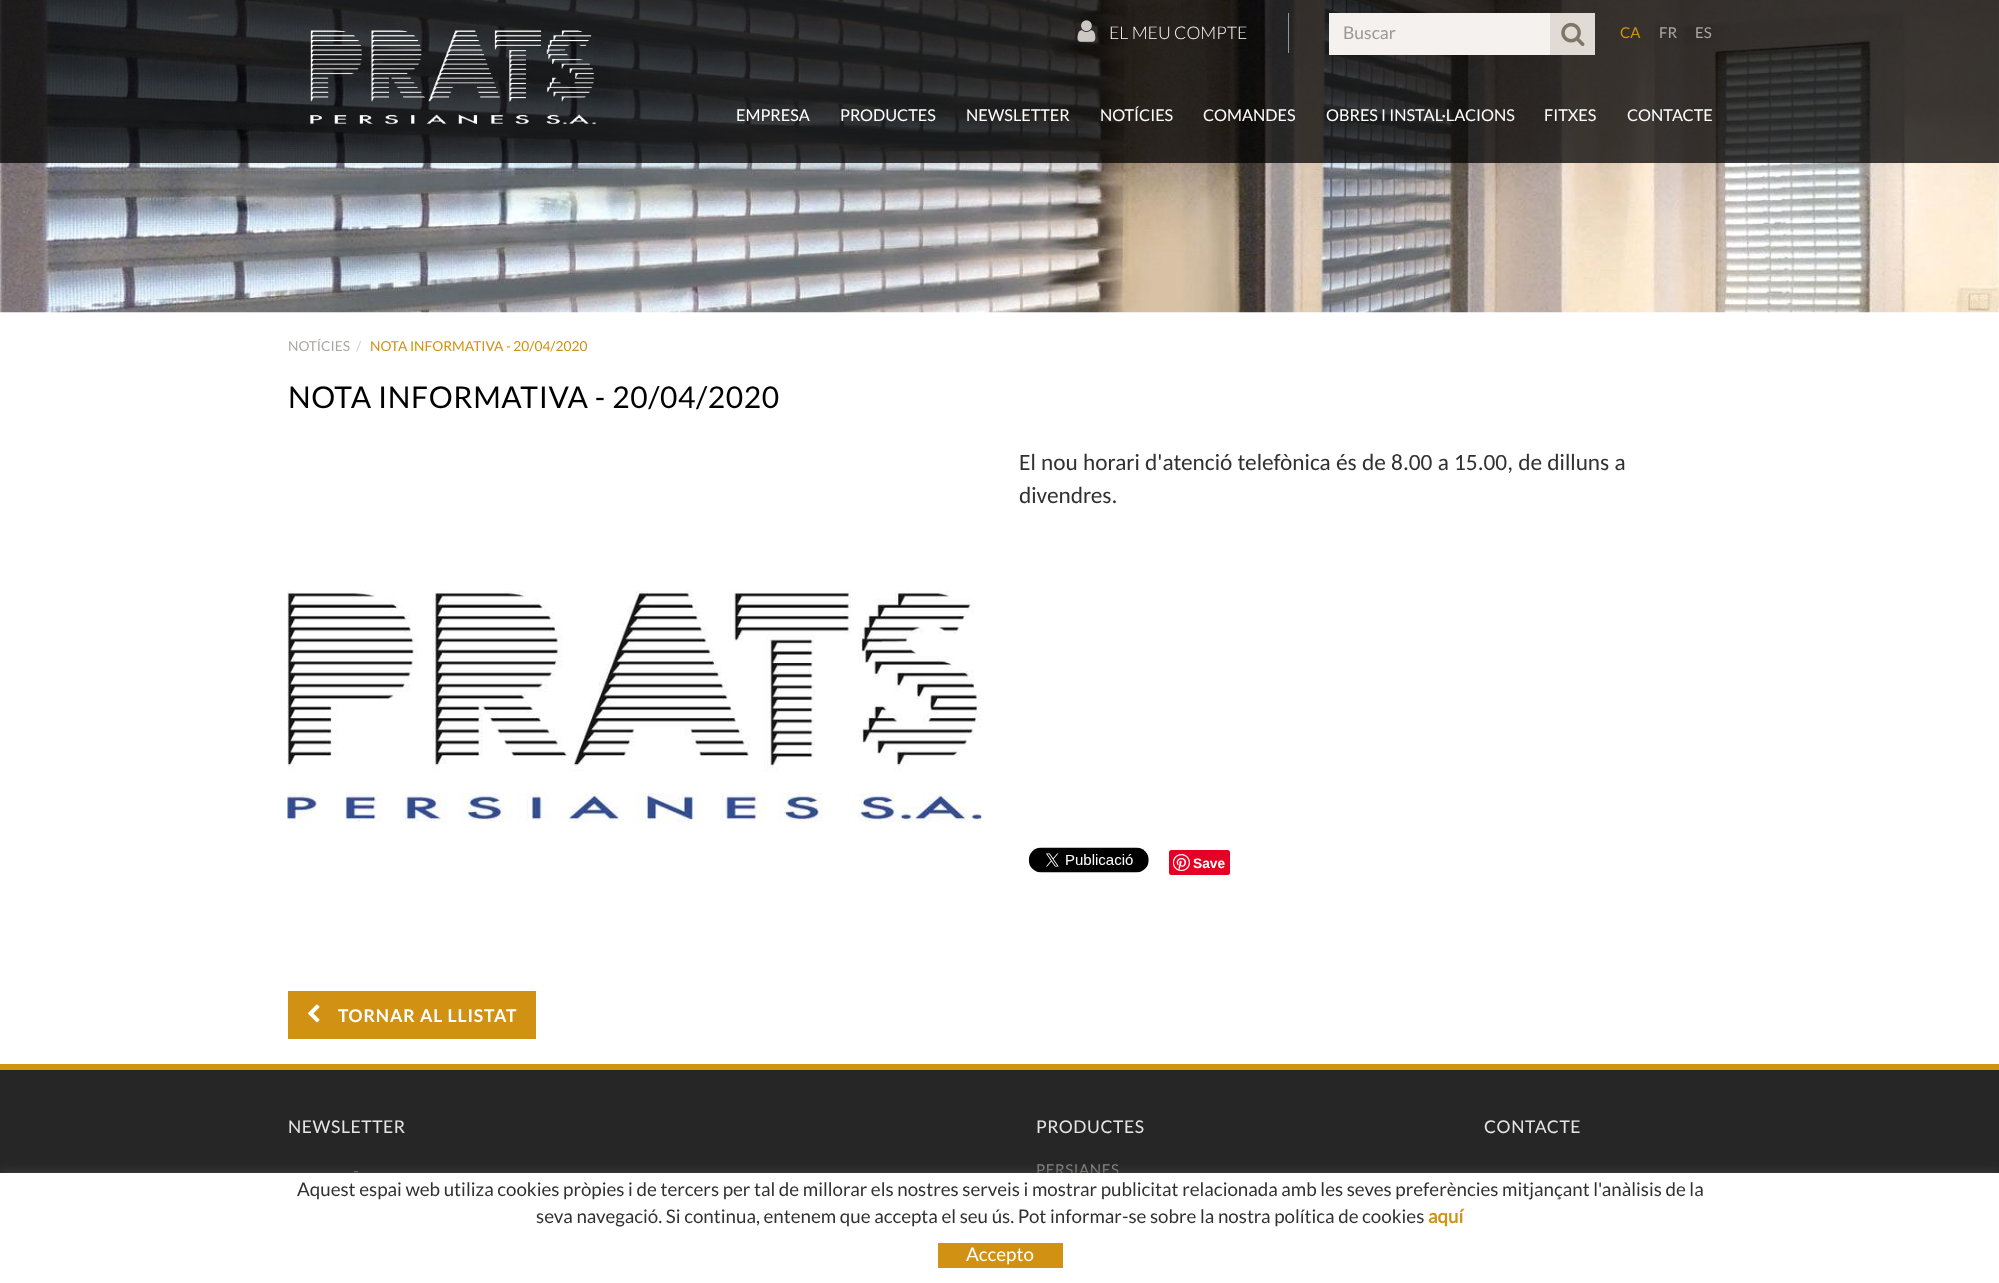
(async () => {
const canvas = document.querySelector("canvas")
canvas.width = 1999
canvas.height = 1283
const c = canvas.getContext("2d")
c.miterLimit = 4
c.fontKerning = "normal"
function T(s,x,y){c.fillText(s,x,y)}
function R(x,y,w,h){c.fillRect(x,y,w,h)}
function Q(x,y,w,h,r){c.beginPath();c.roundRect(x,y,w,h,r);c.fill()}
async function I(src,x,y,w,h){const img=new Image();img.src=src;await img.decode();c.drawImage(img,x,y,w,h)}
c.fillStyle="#fff"
R(0,0,1999,1283)
await I("1.png",0,0,1999,313)
c.fillStyle="#000000bf"
R(0,0,1999,163)
await I("2.png",310,30,287,95)
c.fillStyle="#8b989f"
R(1288,13,1,40)
await I("3.png",1077,20,19,22)
c.font="300 17.5px Lato"
c.fillStyle="#fff"
T("EL MEU COMPTE",1109,39)
c.fillStyle="#f4f1ee"
R(1329,13,221,42)
c.font="17.5px Lato"
c.fillStyle="#999"
T("Buscar",1343,39)
c.fillStyle="#e0dbd5"
R(1550,13,45,42)
await I("4.png",1561,22,24,24)
c.font="15px Lato"
c.fillStyle="#d19113"
T("CA",1620,38)
c.fillStyle="#aca7a7"
T("FR",1659,38)
T("ES",1695,38)
c.font="16.25px Lato"
c.fillStyle="#fff"
T("EMPRESA",736,121)
T("PRODUCTES",840,121)
T("NEWSLETTER",966,121)
T("NOTÍCIES",1100,121)
T("COMANDES",1203,121)
T("OBRES I INSTAL·LACIONS",1326,121)
T("FITXES",1544,121)
T("CONTACTE",1627,121)
c.font="13.75px Lato"
c.fillStyle="#aca7a7"
T("NOTÍCIES",288,351)
c.fillStyle="#ccc"
T("/",356,351)
c.fillStyle="#d19113"
T("NOTA INFORMATIVA - 20/04/2020",370,351)
c.letterSpacing="0.6px"
c.font="30px Lato"
c.fillStyle="#000"
T("NOTA INFORMATIVA - 20/04/2020",288,408)
await I("5.png",287,590,695,232)
c.letterSpacing="0px"
c.font="23.3px Carlito"
c.fillStyle="#313131"
T("El nou horari d'atenció telefònica és de 8.00 a 15.00, de dilluns a",1019,470)
T("divendres.",1019,503)
await I("6.png",1028,847,121,26)
c.fillStyle="#e60023"
Q(1169,850,61,25,2.5)
await I("7.png",1173,854,17,17)
c.font="bold 13.75px Liberation Sans"
c.fillStyle="#fff"
T("Save",1193,868)
c.fillStyle="#d19113"
R(288,991,248,48)
await I("8.png",308,1004,12,19)
c.letterSpacing="0.9px"
c.font="bold 17.5px Lato"
c.fillStyle="#fff"
T("TORNAR AL LLISTAT",338,1022)
c.fillStyle="#262626"
R(0,1070,1999,103)
c.fillStyle="#d19113"
R(0,1064,1999,6)
c.letterSpacing="0.6px"
c.font="17.5px Lato"
c.fillStyle="#e5e5e5"
T("NEWSLETTER",288,1133)
c.letterSpacing="0px"
c.fillStyle="#8c8b88"
T("-",353,1177)
c.letterSpacing="0.6px"
c.fillStyle="#e5e5e5"
T("PRODUCTES",1036,1133)
c.font="15px Lato"
c.fillStyle="#8c8b88"
T("PERSIANES",1036,1175)
c.font="17.5px Lato"
c.fillStyle="#e5e5e5"
T("CONTACTE",1484,1133)
c.fillStyle="#444"
c.filter="blur(6px)"
c.beginPath()
c.rect(0,1173,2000,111)
c.fill()
c.filter="none"
c.fillStyle="#fff"
R(0,1173,1999,110)
c.letterSpacing="0px"
c.font="18.75px Lato"
c.fillStyle="#313131"
T("Aquest espai web utiliza cookies pròpies i de tercers per tal de millorar els nostres serveis i mostrar publicitat relacionada amb les seves preferències mitjançant l'anàlisis de la",297,1196)
T("seva navegació. Si continua, entenem que accepta el seu ús. Pot informar-se sobre la nostra política de cookies",536,1223)
c.font="bold 18.75px 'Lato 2'"
c.fillStyle="#d19113"
T("aquí",1428,1223)
R(938,1243,125,25)
c.font="18.75px Lato"
c.fillStyle="#fff"
T("Accepto",966,1261)
})()
